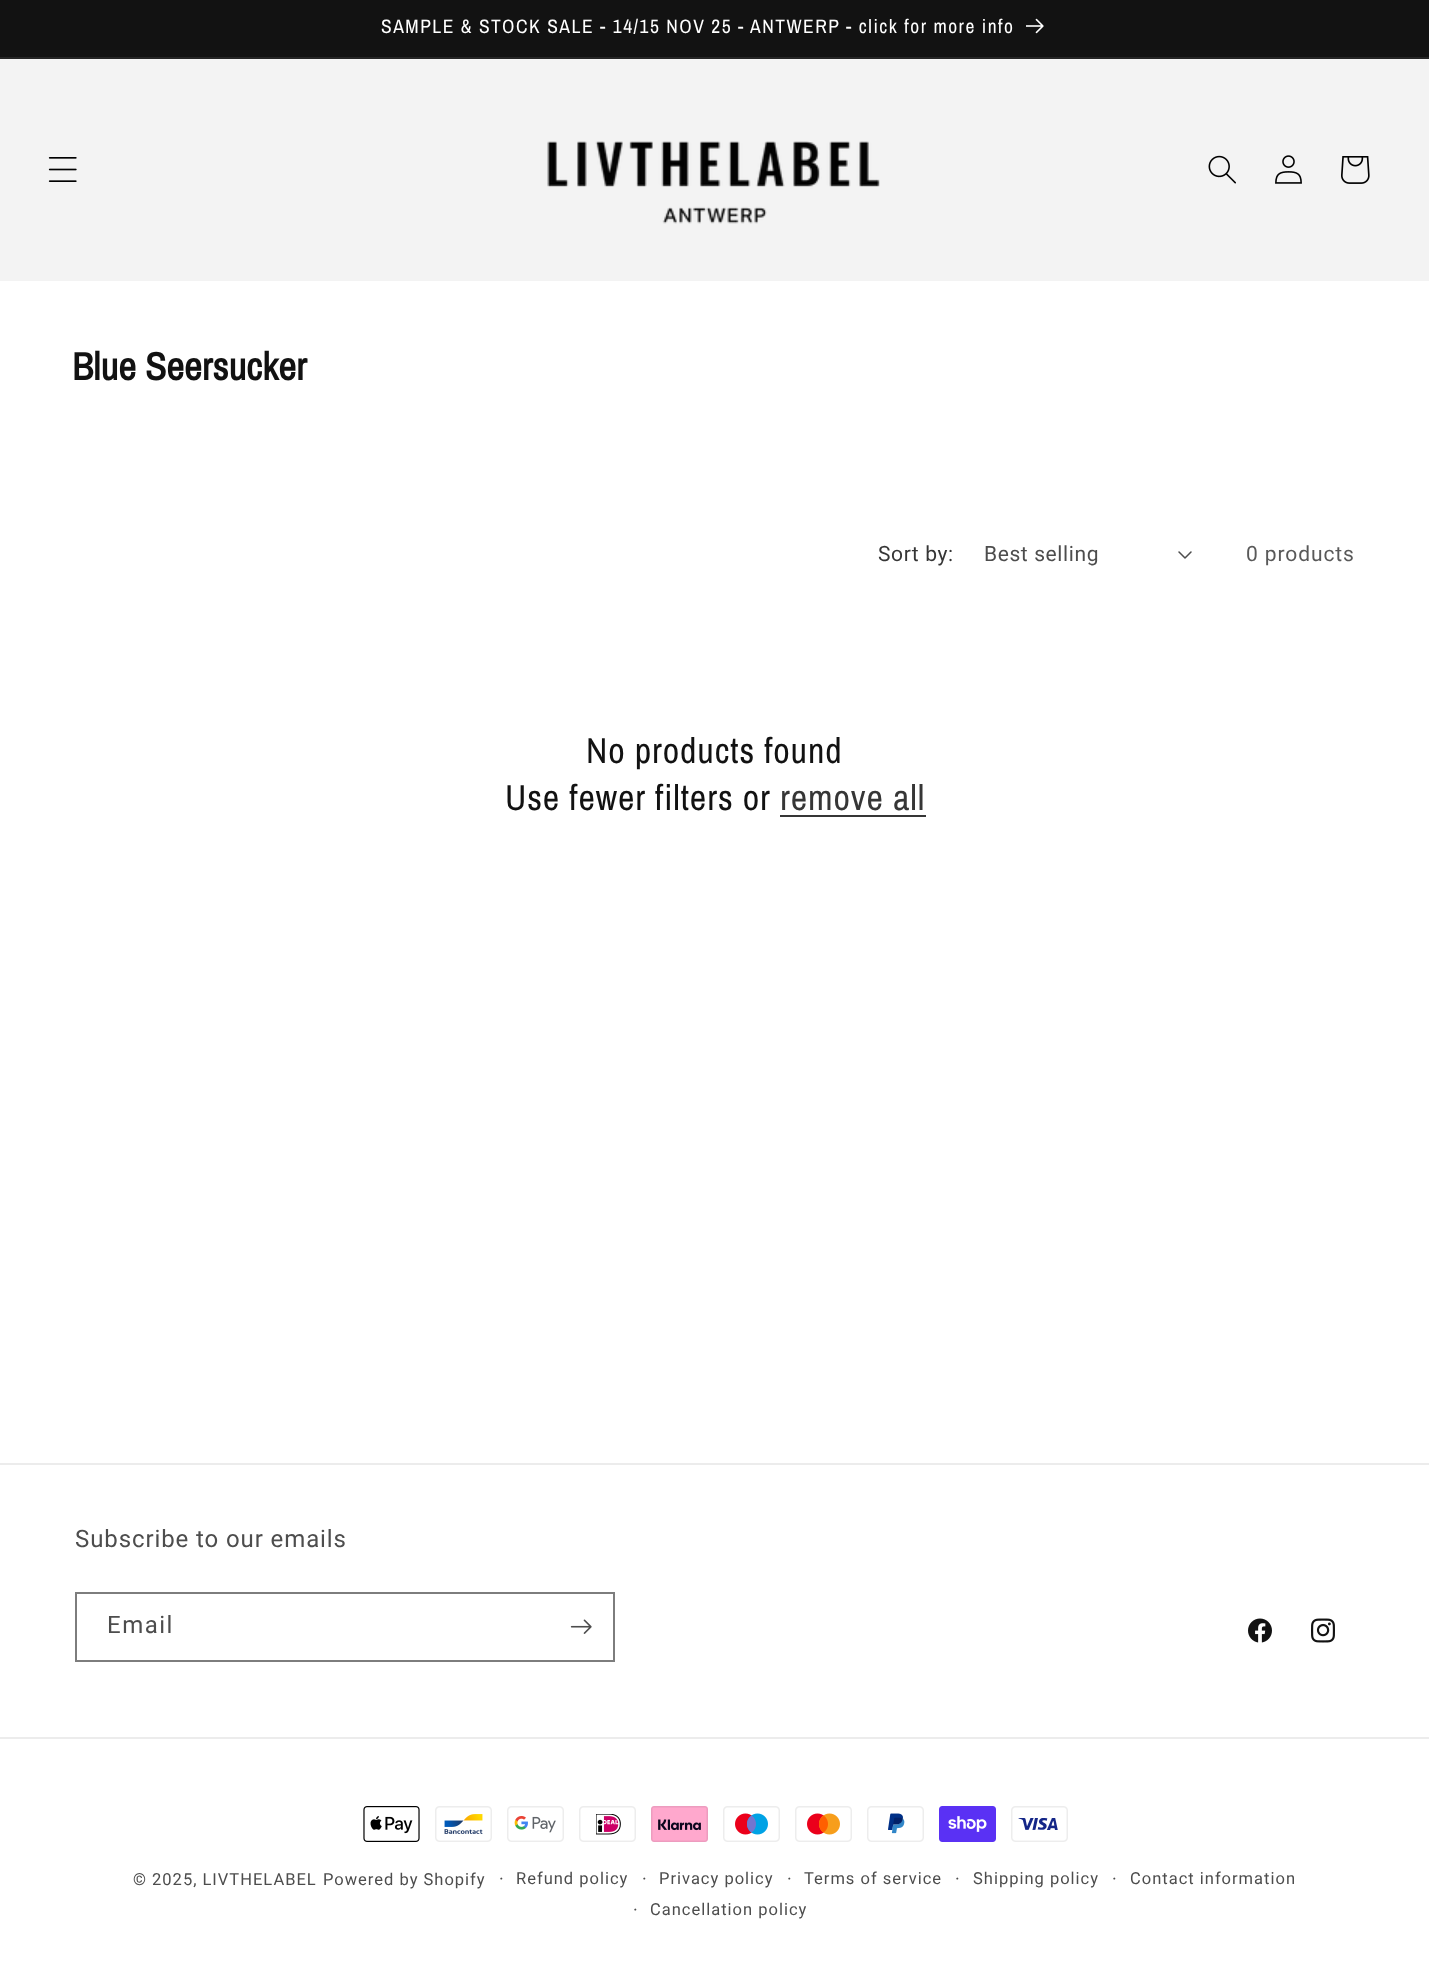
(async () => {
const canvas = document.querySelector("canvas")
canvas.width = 1429
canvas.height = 1980
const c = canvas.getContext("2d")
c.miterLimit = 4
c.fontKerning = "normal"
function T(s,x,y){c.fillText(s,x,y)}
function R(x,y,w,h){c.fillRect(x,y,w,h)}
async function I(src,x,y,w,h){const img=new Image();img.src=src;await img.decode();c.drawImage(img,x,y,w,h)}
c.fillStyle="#fff"
R(0,0,1429,1980)
c.fillStyle="#121212"
R(0,0,1429,57)
c.fillStyle="#252525"
R(0,57,1429,2)
c.letterSpacing="1.5px"
c.font="19.5px Archivo Narrow"
c.fillStyle="#fff"
T("SAMPLE & STOCK SALE - 14/15 NOV 25 - ANTWERP - click for more info",381,33)
await I("1.png",1026,18,18,16)
c.fillStyle="#f3f3f3"
R(0,59,1429,222)
await I("2.png",48,157,29,25)
await I("3.png",547,141,333,83)
await I("4.png",1208,155,28,29)
await I("5.png",1275,155,27,29)
await I("6.png",1341,156,29,28)
c.letterSpacing="0px"
c.font="bold 39px Archivo Narrow"
c.fillStyle="#121212"
T("Blue Seersucker",72,380)
c.letterSpacing="0.6px"
c.font="21px Roboto"
c.fillStyle="#363636"
T("Sort by:",878,561)
c.fillStyle="#4d4d4d"
T("Best selling",984,561)
await I("7.png",1178,551,14,8)
c.letterSpacing="0.9px"
c.fillStyle="#595959"
T("0 products",1246,561)
c.font="36px Archivo Narrow"
c.fillStyle="#121212"
T("No products found",586,763)
T("Use fewer filters or",505,810)
c.fillStyle="#363636"
T("remove all",780,810)
R(780,815,146,2)
c.fillStyle="#ececec"
R(0,1463,1429,2)
c.font="24px Roboto"
c.fillStyle="#4d4d4d"
T("Subscribe to our emails",75,1547)
c.strokeStyle="#7d7d7d"
c.lineWidth=2
c.strokeRect(76,1593,538,68)
c.letterSpacing="1.5px"
T("Email",107,1633)
await I("8.png",570,1619,22,15)
await I("9.png",1248,1618,24,25)
await I("10.png",1311,1618,24,25)
c.fillStyle="#ececec"
R(0,1737,1429,2)
await I("11.png",363,1806,57,36)
await I("12.png",435,1806,57,36)
await I("13.png",507,1806,57,36)
await I("14.png",579,1806,57,36)
await I("15.png",651,1806,57,36)
await I("16.png",723,1806,57,36)
await I("17.png",795,1806,57,36)
await I("18.png",867,1806,57,36)
await I("19.png",939,1806,57,36)
await I("20.png",1011,1806,57,36)
c.letterSpacing="1px"
c.font="16.5px Roboto"
c.fillStyle="#4d4d4d"
T("© 2025, LIVTHELABEL",133,1885)
T("Powered by Shopify",323,1885)
c.font="18px Roboto"
T("·",499,1885)
c.font="16.5px Roboto"
T("Refund policy",516,1884)
c.font="18px Roboto"
T("·",642,1885)
c.font="16.5px Roboto"
T("Privacy policy",659,1884)
c.font="18px Roboto"
T("·",787,1885)
c.font="16.5px Roboto"
T("Terms of service",804,1884)
c.font="18px Roboto"
T("·",955,1885)
c.font="16.5px Roboto"
T("Shipping policy",973,1884)
c.font="18px Roboto"
T("·",1112,1885)
c.font="16.5px Roboto"
T("Contact information",1130,1884)
c.font="18px Roboto"
T("·",633,1916)
c.font="16.5px Roboto"
T("Cancellation policy",650,1915)
})()
